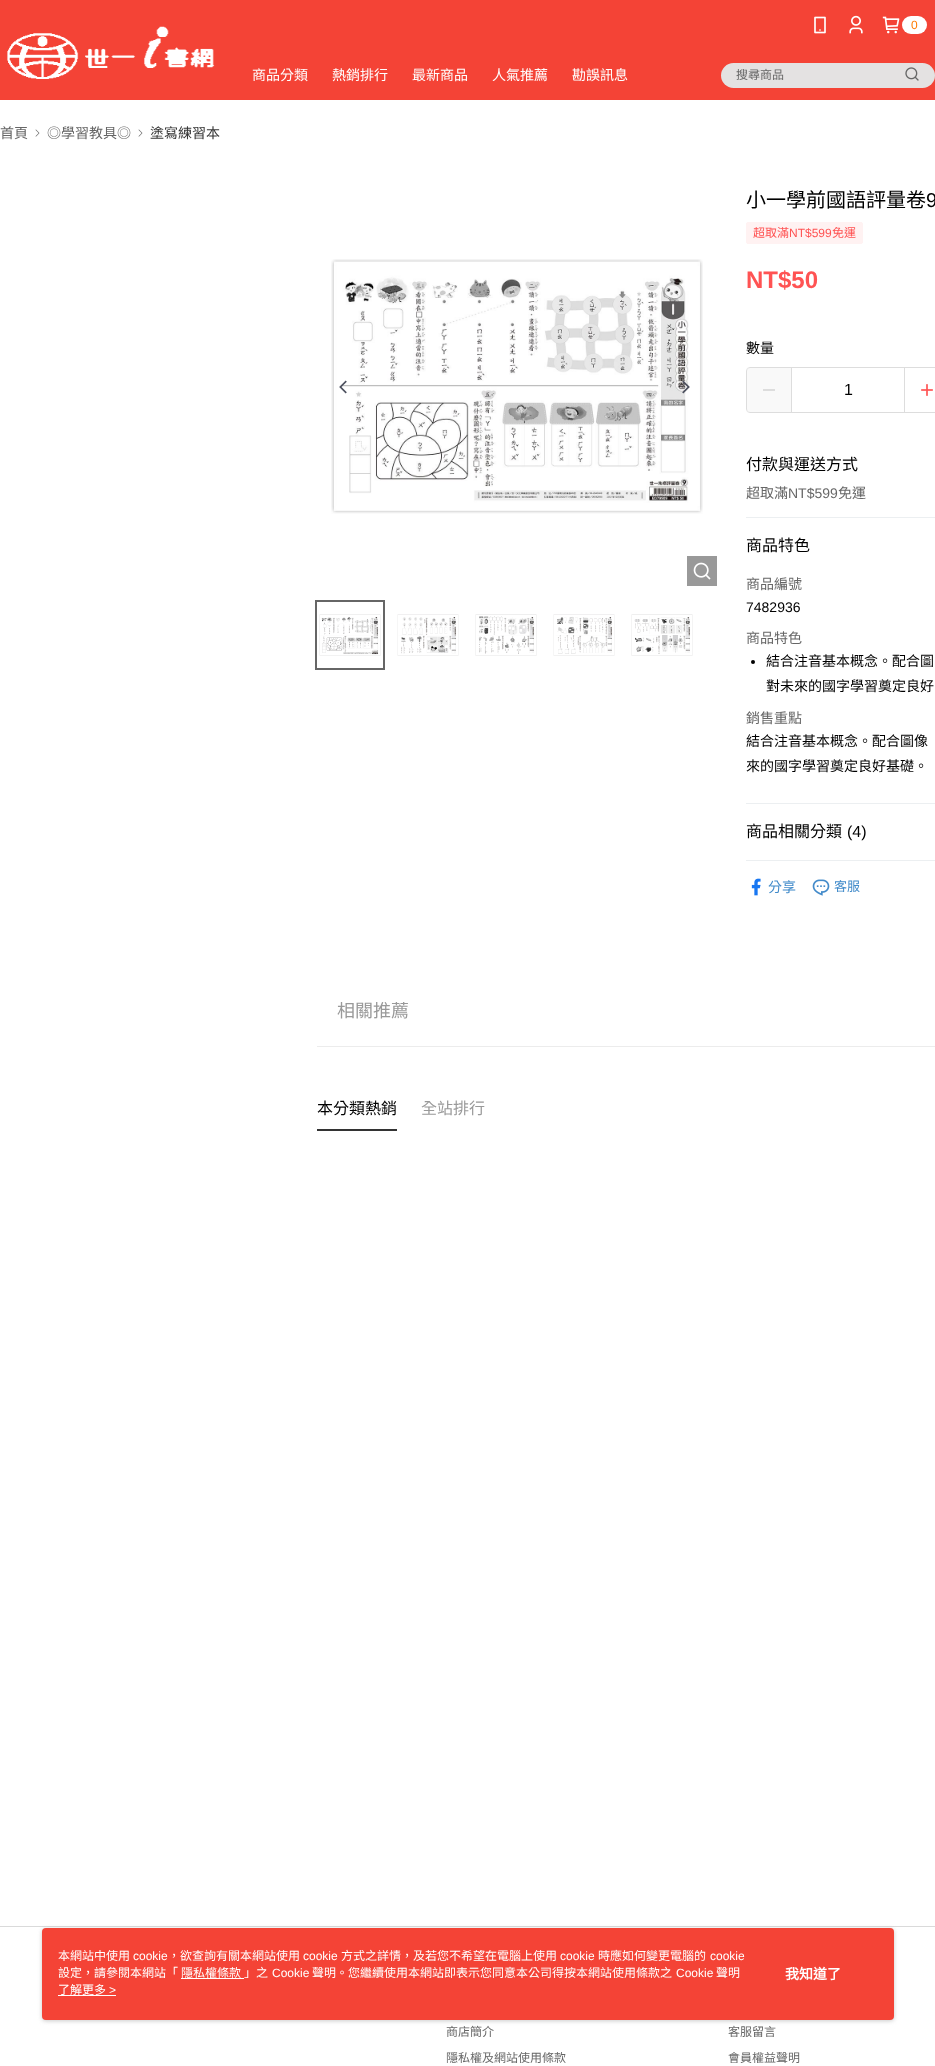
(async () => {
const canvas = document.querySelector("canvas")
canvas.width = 935
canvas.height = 2066
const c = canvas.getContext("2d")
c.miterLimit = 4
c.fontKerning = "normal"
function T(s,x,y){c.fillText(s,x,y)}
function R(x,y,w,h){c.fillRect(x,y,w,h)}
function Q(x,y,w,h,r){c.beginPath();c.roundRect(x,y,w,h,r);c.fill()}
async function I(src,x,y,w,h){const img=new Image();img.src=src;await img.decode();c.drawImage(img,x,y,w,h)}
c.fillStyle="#fff"
R(0,0,935,2066)
c.fillStyle="#f44336"
R(0,0,935,100)
await I("1.png",7,26,208,53)
await I("2.png",814,16,12,18)
await I("3.png",849,15,14,19)
await I("4.png",882,16,18,18)
c.fillStyle="#fff"
Q(902,16,25,18,9)
c.font="12px Liberation Sans"
c.fillStyle="#ff7a00"
T("0",911,29)
c.font="14px Noto Sans CJK TC"
c.fillStyle="#fff"
T("商品分類",252,80)
T("熱銷排行",332,80)
T("最新商品",412,80)
T("人氣推薦",492,80)
T("勘誤訊息",572,80)
c.fillStyle="#e4e2e2"
Q(721,63,214,25,12.5)
c.font="12px Noto Sans CJK TC"
c.fillStyle="#666"
T("搜尋商品",736,79)
await I("5.png",905,67,14,14)
c.font="14px Noto Sans CJK TC"
T("首頁",0,138)
await I("6.png",35,129,5,8)
T("◎學習教具◎",47,138)
await I("6.png",138,129,5,8)
c.fillStyle="#333"
T("塗寫練習本",150,138)
await I("7.png",331,259,372,255)
c.fillStyle="#999"
R(687,556,30,30)
await I("8.png",693,562,18,18)
await I("9.png",339,380,8,14)
await I("10.png",682,380,8,14)
await I("11.png",319,614,62,42)
c.strokeStyle="#666"
c.lineWidth=2
c.strokeRect(316,601,68,68)
await I("12.png",397,614,62,42)
await I("13.png",475,614,62,42)
await I("14.png",553,614,62,42)
await I("15.png",631,614,62,42)
c.font="20px Noto Sans CJK TC"
c.fillStyle="#000"
T("小一學前國語評量卷",746,207)
c.font="20px Liberation Sans"
T("9",926,207)
c.fillStyle="#fff2f2"
c.beginPath()
c.roundRect(746.5,222.5,116,21,1.5)
c.fill()
c.strokeStyle="#fff2f2"
c.lineWidth=1
c.stroke()
c.font="12px Noto Sans CJK TC"
c.fillStyle="#ff5353"
T("超取滿",753,237)
c.font="12px Liberation Sans"
T("NT$599",789,237)
c.font="12px Noto Sans CJK TC"
T("免運",832,237)
c.font="bold 24px Liberation Sans"
T("NT$50",746,288)
c.font="14px Noto Sans CJK TC"
c.fillStyle="#000"
T("數量",746,353)
c.beginPath()
c.roundRect(746.5,367.5,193,45,3.5)
c.strokeStyle="#ddd"
c.stroke()
c.fillStyle="#f1f1f166"
R(747,368,44,44)
c.fillStyle="#ddd"
R(763,389,12,2)
R(904,368,1,44)
R(791,368,1,44)
c.font="16px Liberation Sans"
c.fillStyle="#000"
T("1",844,395)
await I("16.png",921,384,12,12)
c.fillStyle="#eceff1"
R(746,517,189,1)
c.font="16px Noto Sans CJK TC"
c.fillStyle="#000"
T("付款與運送方式",746,470)
c.font="14px Noto Sans CJK TC"
c.fillStyle="#666"
T("超取滿",746,498)
c.font="14px Liberation Sans"
T("NT$599",788,498)
c.font="14px Noto Sans CJK TC"
T("免運",838,498)
c.fillStyle="#eceff1"
R(746,803,189,1)
c.font="16px Noto Sans CJK TC"
c.fillStyle="#000"
T("商品特色",746,551)
c.font="14px Noto Sans CJK TC"
c.fillStyle="#666"
T("商品編號",746,589)
c.font="14px Liberation Sans"
c.fillStyle="#000"
T("7482936",746,612)
c.font="14px Noto Sans CJK TC"
c.fillStyle="#666"
T("商品特色",746,643)
c.fillStyle="#000"
c.beginPath()
c.arc(753,662,2,0,7)
c.fill()
T("結合注音基本概念。配合圖",766,666)
T("對未來的國字學習奠定良好",766,691)
c.fillStyle="#666"
T("銷售重點",746,723)
c.fillStyle="#000"
T("結合注音基本概念。配合圖像",746,746)
T("來的國字學習奠定良好基礎。",746,771)
c.fillStyle="#eceff1"
R(746,860,189,1)
c.font="16px Noto Sans CJK TC"
c.fillStyle="#000"
T("商品相關分類",746,837)
c.font="16px Liberation Sans"
T("(4)",847,837)
await I("17.png",751,878,10,18)
c.font="14px Noto Sans CJK TC"
c.fillStyle="#428bca"
T("分享",768,892)
await I("18.png",812,879,18,17)
c.font="13px Noto Sans CJK TC"
T("客服",834,891)
c.fillStyle="#ececec"
R(317,1046,618,1)
c.font="18px Noto Sans CJK TC"
c.fillStyle="#999"
T("相關推薦",337,1017)
c.fillStyle="#333"
R(317,1129,80,2)
c.font="16px Noto Sans CJK TC"
c.fillStyle="#000"
T("本分類熱銷",317,1114)
c.fillStyle="#999"
T("全站排行",421,1114)
c.fillStyle="#dadada"
R(0,1926,935,1)
c.font="12px Noto Sans CJK TC"
c.fillStyle="#666"
T("商店簡介",446,2036)
T("隱私權及網站使用條款",446,2062)
T("客服留言",728,2036)
T("會員權益聲明",728,2062)
c.fillStyle="#97979780"
c.filter="blur(2px)"
c.beginPath()
c.roundRect(42,1929,852,92,4)
c.fill()
c.filter="none"
c.fillStyle="#f44336"
Q(42,1928,852,92,4)
c.fillStyle="#fff"
T("本網站中使用",58,1960)
c.font="12px Liberation Sans"
T("cookie",133,1960)
c.font="12px Noto Sans CJK TC"
T("，欲查詢有關本網站使用",168,1960)
c.font="12px Liberation Sans"
T("cookie",303,1960)
c.font="12px Noto Sans CJK TC"
T("方式之詳情，及若您不希望在電腦上使用",341,1960)
c.font="12px Liberation Sans"
T("cookie",560,1960)
c.font="12px Noto Sans CJK TC"
T("時應如何變更電腦的",598,1960)
c.font="12px Liberation Sans"
T("cookie",710,1960)
c.font="12px Noto Sans CJK TC"
T("設定，請參閱本網站「",58,1977)
T("隱私權條款",181,1977)
R(181,1978,63,1)
T("」之",244,1977)
c.font="12px Liberation Sans"
T("Cookie",272,1977)
c.font="12px Noto Sans CJK TC"
T("聲明。您繼續使用本網站即表示您同意本公司得按本網站使用條款之",312,1977)
c.font="12px Liberation Sans"
T("Cookie",676,1977)
c.font="12px Noto Sans CJK TC"
T("聲明",716,1977)
T("了解更多",58,1994)
c.font="12px Liberation Sans"
T(">",109,1994)
R(58,1995,58,1)
c.font="bold 14px Noto Sans CJK TC"
T("我知道了",785,1979)
})()
